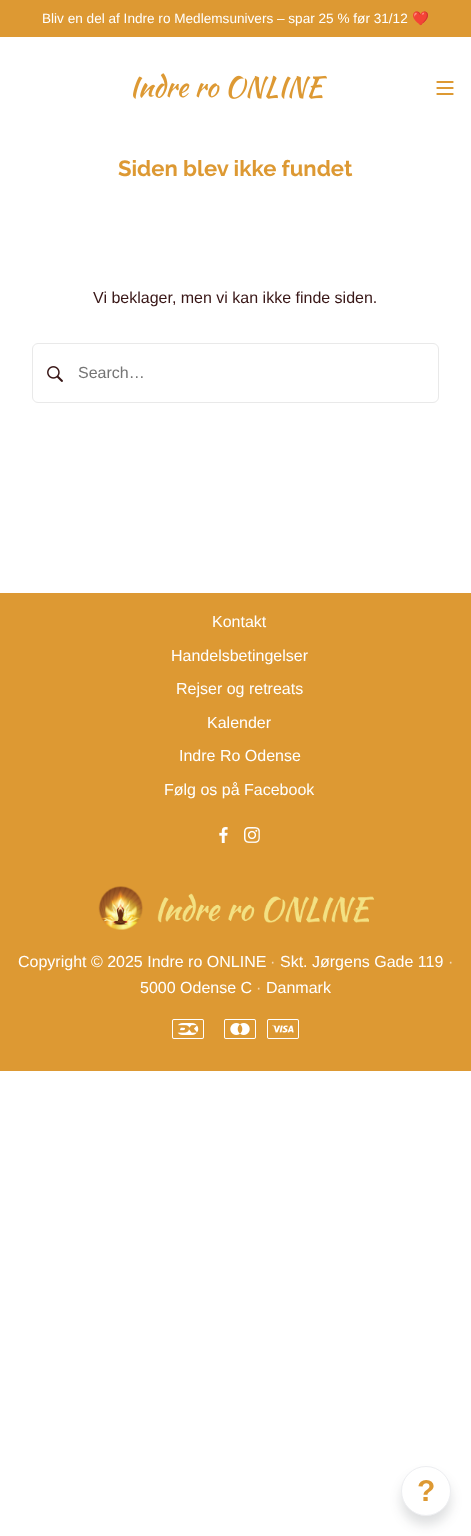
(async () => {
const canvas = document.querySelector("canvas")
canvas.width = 471
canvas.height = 1536
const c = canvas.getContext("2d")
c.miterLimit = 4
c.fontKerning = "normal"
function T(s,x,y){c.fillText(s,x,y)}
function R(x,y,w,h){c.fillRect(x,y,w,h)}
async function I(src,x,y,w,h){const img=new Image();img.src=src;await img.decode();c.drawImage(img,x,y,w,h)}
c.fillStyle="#fff"
R(0,0,471,1536)
c.fillStyle="#d93"
R(0,0,471,37)
c.font="13.6px Liberation Sans"
c.fillStyle="#fff"
T("Bliv en del af Indre ro Medlemsunivers – spar 25 % før 31/12",42,23)
c.font="13.6px Noto Color Emoji"
T("❤️",412,23)
await I("1.png",133,73,194,26)
await I("2.png",436,81,18,14)
c.font="bold 22px Raleway"
c.fillStyle="#d93"
T("Siden blev ikke fundet",118,176)
c.font="16px Liberation Sans"
c.fillStyle="#381616"
T("Vi beklager, men vi kan ikke finde siden.",93,303)
c.beginPath()
c.roundRect(32.5,343.5,406,59,5.5)
c.strokeStyle="#e9e9e9"
c.stroke()
await I("3.png",47,366,16,16)
c.fillStyle="#757575"
T("Search…",78,378)
c.fillStyle="#d93"
R(0,593,471,478)
c.fillStyle="#fff"
T("Kontakt",212,627)
T("Handelsbetingelser",171,661)
T("Rejser og retreats",176,694)
T("Kalender",207,728)
T("Indre Ro Odense",179,761)
T("Følg os på Facebook",164,795)
await I("4.png",219,827,9,16)
await I("5.png",244,827,16,16)
await I("6.png",98,886,277,44)
T("Copyright © 2025 Indre ro ONLINE",18,967)
c.fillStyle="#f4ddbc"
T("·",270,967)
c.fillStyle="#fff"
T("Skt. Jørgens Gade 119",280,967)
c.fillStyle="#f4ddbc"
T("·",448,967)
c.fillStyle="#fff"
T("5000 Odense C",140,993)
c.fillStyle="#f4ddbc"
T("·",256,993)
c.fillStyle="#fff"
T("Danmark",266,993)
await I("7.png",172,1019,32,20)
await I("8.png",224,1019,32,20)
await I("9.png",267,1019,32,20)
c.fillStyle="#22262f26"
c.filter="blur(6px)"
c.beginPath()
c.roundRect(401,1475,50,50,25)
c.fill()
c.filter="none"
c.fillStyle="#fff"
c.beginPath()
c.arc(426,1491,24.5,0,7)
c.fill()
c.strokeStyle="#edeef1"
c.stroke()
c.font="bold 30px Liberation Sans"
c.fillStyle="#d93"
T("?",417,1501)
})()
